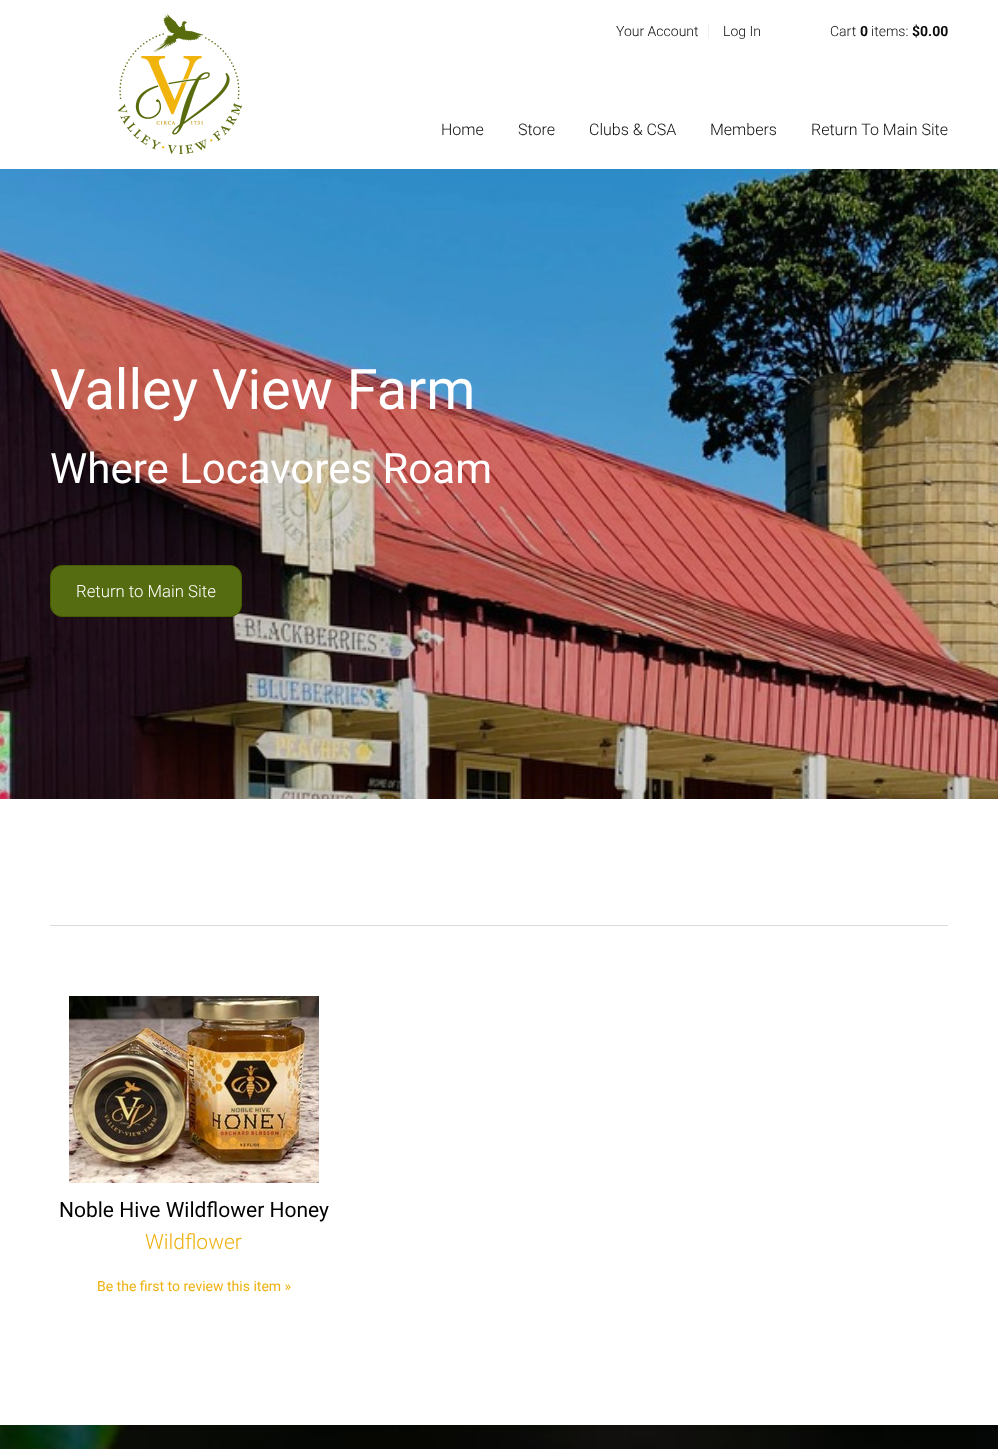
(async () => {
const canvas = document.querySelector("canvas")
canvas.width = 998
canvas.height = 1449
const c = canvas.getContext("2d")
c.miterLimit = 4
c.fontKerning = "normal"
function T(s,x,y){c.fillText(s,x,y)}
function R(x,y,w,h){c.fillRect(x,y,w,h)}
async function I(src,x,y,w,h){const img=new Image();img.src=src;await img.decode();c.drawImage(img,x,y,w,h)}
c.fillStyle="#fff"
R(0,0,998,1449)
await I("1.png",118,14,124,140)
c.fillStyle="#f0f0f0"
R(708,24,1,14)
c.font="300 14px Roboto"
c.fillStyle="#0a0a0a"
T("Your Account",616,36)
T("Log In",723,36)
T("Cart",830,36)
c.font="bold 14px Roboto"
T("0",860,36)
c.font="300 14px Roboto"
T("items:",871,36)
c.font="bold 14px Roboto"
T("$0.00",912,36)
c.font="300 16px Roboto"
T("Home",441,135)
T("Store",518,135)
T("Clubs & CSA",589,135)
T("Members",710,135)
T("Return To Main Site",811,135)
await I("2.png",0,169,998,630)
c.font="56px Roboto"
c.fillStyle="#fff"
T("Valley View Farm",50,409)
c.font="42px Roboto"
T("Where Locavores Roam",50,483)
c.fillStyle="#566c11"
c.beginPath()
c.roundRect(50.5,565.5,191,51,11.5)
c.fill()
c.strokeStyle="#455b00"
c.stroke()
c.font="300 16.75px Roboto"
c.fillStyle="#fff"
T("Return to Main Site",76,597)
c.fillStyle="#dbdbdb"
R(50,925,898,1)
await I("3.png",69,996,250,187)
c.font="21px Roboto"
c.fillStyle="#000"
T("Noble Hive Wildflower Honey",59,1217)
c.font="300 21px Roboto"
c.fillStyle="#eeb111"
T("Wildflower",145,1249)
c.font="14px Roboto"
T("Be the first to review this item »",97,1291)
await I("4.png",0,1425,998,24)
})()
